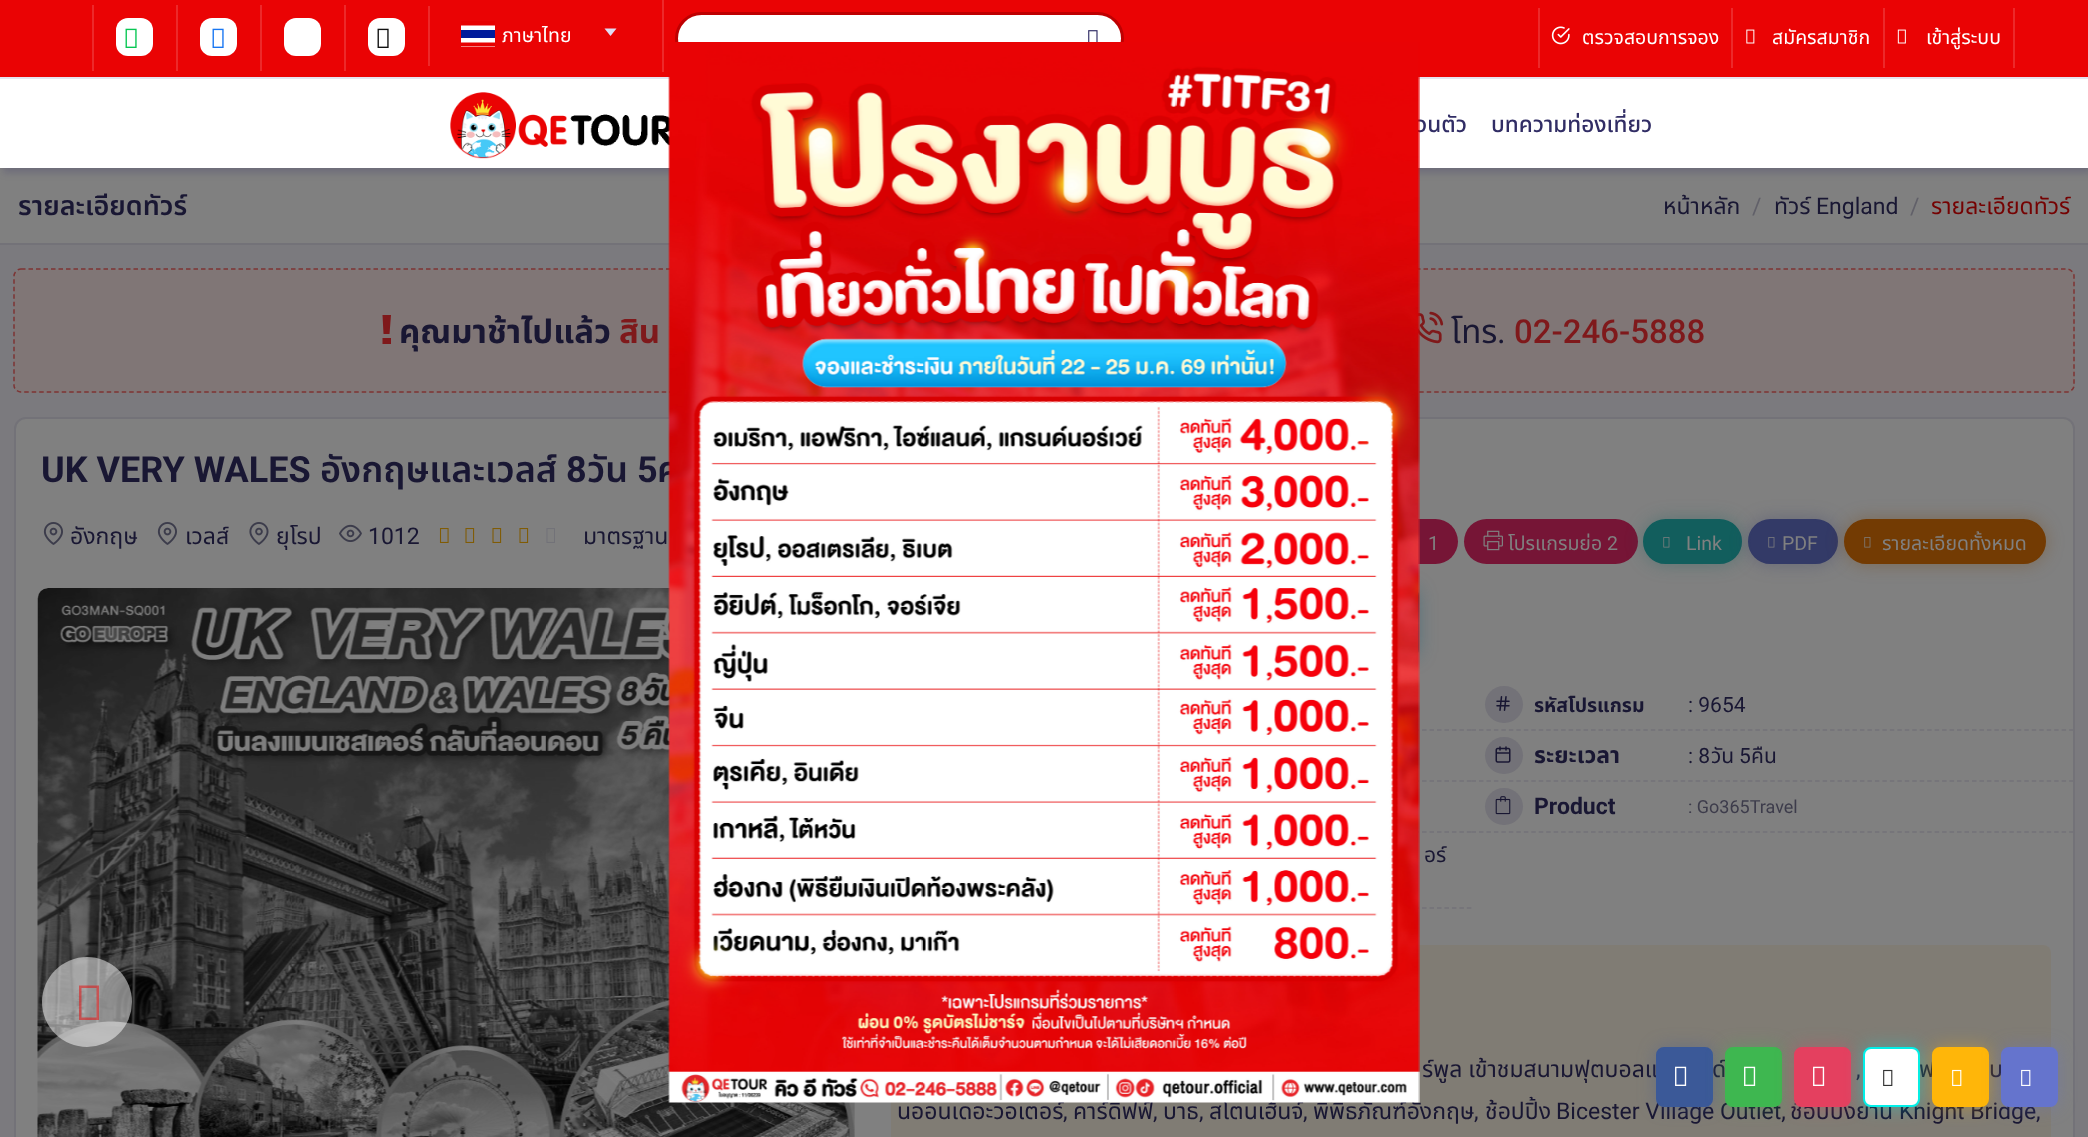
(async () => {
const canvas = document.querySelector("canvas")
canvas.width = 2088
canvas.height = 1137
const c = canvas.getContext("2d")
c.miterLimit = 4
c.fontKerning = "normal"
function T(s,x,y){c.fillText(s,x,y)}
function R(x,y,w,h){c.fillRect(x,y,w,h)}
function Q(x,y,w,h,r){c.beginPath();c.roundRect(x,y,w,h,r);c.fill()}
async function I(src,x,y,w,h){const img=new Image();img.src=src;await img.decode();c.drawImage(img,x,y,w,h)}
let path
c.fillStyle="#7b7a7e"
R(0,0,2088,1137)
c.fillStyle="#808080"
R(0,168,2088,75)
c.fillStyle="#312d653d"
c.filter="blur(3.5px)"
c.beginPath()
c.rect(3,83,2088,90)
c.fill()
c.filter="none"
c.fillStyle="#ea0304"
R(0,0,2088,77)
c.fillStyle="#e5e4f0"
R(0,77,2088,2)
c.fillStyle="#ed292a"
R(92,5,2,66)
c.fillStyle="#fff"
Q(116,18,37,38,12)
await I("1.png",125,28,12,20)
c.fillStyle="#ed292a"
R(176,5,2,66)
c.fillStyle="#fff"
Q(200,18,37,38,12)
await I("2.png",212,28,12,20)
c.fillStyle="#ed292a"
R(260,5,2,66)
c.fillStyle="#fff"
Q(284,18,37,38,12)
c.fillStyle="#ed292a"
R(344,5,2,66)
c.fillStyle="#fff"
Q(368,18,37,38,12)
await I("3.png",377,28,12,20)
c.fillStyle="#ed292a"
R(662,0,2,72)
R(428,6,2,60)
c.font="19.5px Noto Sans Thai"
c.fillStyle="#fff"
T("ภาษาไทย",502,42)
R(461,25,34,22)
c.fillStyle="#001b9a"
R(461,30,34,8)
c.fillStyle="#e70000"
path = new Path2D("M461 21h34v4.5h-34zm0 21.5h34v4h-34z")
c.fill(path,"evenodd")
c.fillStyle="#dfdcf3"
path = new Path2D("M604.5 28.5h12l-6 7.5z")
c.fill(path)
c.fillStyle="#fff"
c.beginPath()
c.roundRect(676.5,13.5,446,50,25)
c.fill()
c.strokeStyle="#be0001"
c.lineWidth=3
c.stroke()
await I("4.png",1088,30,10,12)
c.fillStyle="#ed292a"
R(2013,8,2,60)
R(1538,8,2,60)
await I("5.png",1551,26,19,19)
c.fillStyle="#fff"
T("ตรวจสอบการจอง",1582,44)
c.fillStyle="#ed292a"
R(1731,8,2,60)
await I("6.png",1746,29,9,15)
c.fillStyle="#fff"
T("สมัครสมาชิก",1772,44)
c.fillStyle="#ed292a"
R(1883,8,2,60)
await I("7.png",1897,29,9,15)
c.fillStyle="#fff"
T("เข้าสู่ระบบ",1926,44)
R(0,79,2088,89)
await I("8.png",450,92,220,67)
c.font="500 22.5px Noto Sans Thai"
c.fillStyle="#312d65"
T("วนตัว",1416,132)
T("บทความท่องเที่ยว",1491,132)
c.fillStyle="#737278"
R(0,243,2088,2)
c.fillStyle="#807676"
Q(14,269,2061,124,8)
path = new Path2D("M21 269h2046c3.5 0 7 3.5 7 7v109.5c0 3.5-3.5 6.5-7 6.5h-2046c-3.5 0-7-3-7-6.5v-109.5c0-3.5 3.5-7 7-7z")
c.strokeStyle="#7d3434"
c.lineWidth=1.5
c.setLineDash([4.5,3])
c.stroke(path)
await I("10.png",1418,311,26,33)
c.fillStyle="#808080"
c.beginPath()
c.roundRect(15,418,2059,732,11)
c.fill()
c.strokeStyle="#737278"
c.lineWidth=2
c.setLineDash([])
c.stroke()
c.font="600 36px Noto Sans Thai"
c.fillStyle="#191733"
T("ค",657,482)
c.fillStyle="#761536"
Q(1286,519,172,45,22.5)
await I("21.png",37,588,818,549)
c.fillStyle="#09587459"
c.filter="blur(9px)"
c.beginPath()
c.roundRect(1181,588,238,69,8)
c.fill()
c.filter="none"
c.beginPath()
c.roundRect(1182,589,236,67,7)
c.strokeStyle="#075874"
c.stroke()
path = new Path2D("M868.5 730h603")
c.strokeStyle="#737278"
c.lineWidth=1.5
c.setLineDash([4.5,2.98])
c.stroke(path)
path = new Path2D("M868.5 781h603")
c.stroke(path)
path = new Path2D("M868.5 832h603")
c.stroke(path)
path = new Path2D("M868.5 908h603")
c.stroke(path)
c.fillStyle="#807c74"
Q(891,945,1160,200,8)
c.font="23px Noto Sans Thai"
c.fillStyle="#191733"
T("ร์พูล เข้าชมสนามฟุตบอลแ",1422,1077)
T("นออนเดอะวอเตอร์",897,1119)
T("คาร์ดิฟฟ์",1073,1119)
T("สโตนเฮ้นจ์",1209,1119)
c.font="23px Roboto"
T(",",1303,1119)
c.font="23px Noto Sans Thai"
T("พิพิธภัณฑ์อังกฤษ",1313,1119)
await I("9.png",668,42,752,1061)
c.font="600 27px Noto Sans Thai"
T("รายละเอียดทัวร์",18,215)
c.font="23px Noto Sans Thai"
T("หน้าหลัก",1663,214)
c.font="23px Roboto"
c.fillStyle="#616069"
T("/",1752,214)
c.font="23px Noto Sans Thai"
c.fillStyle="#191733"
T("ทัวร์",1774,214)
c.font="23px Roboto"
T("England",1816,214)
c.fillStyle="#616069"
T("/",1910,214)
c.font="23px Noto Sans Thai"
c.fillStyle="#750202"
T("รายละเอียดทัวร์",1931,214)
c.fillStyle="#7f191b"
path = new Path2D("M391 344h-8.5v-6h8.5zm-1.5-10h-6l-1-19h8.5z")
c.fill(path)
c.font="bold 33px Noto Sans Thai"
c.fillStyle="#191733"
T("คุณมาช้าไปแล้ว",399,343)
c.fillStyle="#7f191b"
T("สิน",619,343)
c.font="33px Noto Sans Thai"
c.fillStyle="#191733"
T("โทร",1451,343)
c.font="33px Roboto"
T(".",1497,343)
c.font="500 33px Roboto"
c.fillStyle="#7f191b"
T("02-246-5888",1514,343)
c.font="bold 36px Roboto"
c.fillStyle="#191733"
T("UK VERY WALES",41,482)
c.font="600 36px Noto Sans Thai"
T("อังกฤษและเวลส์",320,482)
c.font="bold 36px Roboto"
T("8",566,482)
c.font="600 36px Noto Sans Thai"
T("วัน",587,482)
c.font="bold 36px Roboto"
T("5",637,482)
await I("11.png",43,522,20,23)
c.font="23px Noto Sans Thai"
T("อังกฤษ",70,544)
await I("11.png",157,522,20,23)
T("เวลส์",185,544)
await I("12.png",249,522,20,23)
T("ยุโรป",276,544)
await I("13.png",339,524,23,18)
c.font="23px Roboto"
T("1012",368,544)
await I("14.png",439,528,10,15)
await I("15.png",465,528,10,15)
await I("15.png",492,528,10,15)
await I("15.png",519,528,10,15)
await I("16.png",546,528,9,15)
c.font="23px Noto Sans Thai"
T("มาตรฐาน",583,544)
c.font="19.5px Roboto"
c.fillStyle="#808080"
T("1",1428,550)
c.fillStyle="#761536"
Q(1464,519,174,45,22.5)
await I("17.png",1483,530,20,21)
c.font="19.5px Noto Sans Thai"
c.fillStyle="#808080"
T("โปรแกรมย่อ",1508,550)
c.font="19.5px Roboto"
T("2",1607,550)
c.fillStyle="#125e5d59"
c.filter="blur(9px)"
c.beginPath()
c.roundRect(1643,519,99,45,22.5)
c.fill()
c.filter="none"
c.fillStyle="#125e5d"
c.beginPath()
c.roundRect(1644,520,97,43,21.5)
c.fill()
c.strokeStyle="#125e5d"
c.lineWidth=2
c.setLineDash([])
c.stroke()
await I("18.png",1663,537,7,11)
c.fillStyle="#808080"
T("Link",1686,550)
c.fillStyle="#333a6759"
c.filter="blur(9px)"
c.beginPath()
c.roundRect(1748,519,90,45,22.5)
c.fill()
c.filter="none"
c.fillStyle="#333a67"
c.beginPath()
c.roundRect(1749,520,88,43,21.5)
c.fill()
c.strokeStyle="#333a67"
c.stroke()
await I("19.png",1768,537,7,11)
c.fillStyle="#808080"
T("PDF",1782,550)
c.fillStyle="#733b0359"
c.filter="blur(9px)"
c.beginPath()
c.roundRect(1844,519,202,45,22.5)
c.fill()
c.filter="none"
c.fillStyle="#733b03"
c.beginPath()
c.roundRect(1845,520,200,43,21.5)
c.fill()
c.strokeStyle="#733b03"
c.stroke()
await I("20.png",1864,537,7,11)
c.font="19.5px Noto Sans Thai"
c.fillStyle="#808080"
T("รายละเอียดทั้งหมด",1882,550)
c.fillStyle="#ffffff80"
c.beginPath()
c.arc(87,1002,45,0,7)
c.fill()
c.fillStyle="#ea030480"
path = new Path2D("M79 1020v-34.5h20v34.5zm2.5-2.5h15v-29.5h-15z")
c.fill(path)
path = new Path2D("M1471.5 730h601.5")
c.strokeStyle="#737278"
c.lineWidth=1.5
c.setLineDash([4.5,2.97])
c.stroke(path)
c.fillStyle="#737278"
Q(1485,686,38,37,18.5)
await I("22.png",1496,696,14,15)
c.font="bold 19.5px Noto Sans Thai"
c.fillStyle="#191733"
T("รหัสโปรแกรม",1534,712)
c.font="21px Roboto"
T(": 9654",1688,712)
path = new Path2D("M1471.5 781h601.5")
c.stroke(path)
c.fillStyle="#737278"
Q(1485,737,38,37,18.5)
await I("23.png",1495,746,16,17)
c.font="bold 23px Noto Sans Thai"
c.fillStyle="#191733"
T("ระยะเวลา",1534,763)
c.font="21px Roboto"
T(": 8",1688,763)
c.font="21px Noto Sans Thai"
T("วัน",1711,763)
c.font="21px Roboto"
T("5",1739,763)
c.font="21px Noto Sans Thai"
T("คืน",1751,763)
path = new Path2D("M1471.5 832h601.5")
c.stroke(path)
c.fillStyle="#737278"
Q(1485,788,38,37,18.5)
await I("24.png",1495,796,16,19)
c.font="bold 23px Roboto"
c.fillStyle="#191733"
T("Product",1534,814)
c.font="18px Roboto"
c.fillStyle="#3d3c4b"
T(": Go365Travel",1688,813)
c.font="21px Noto Sans Thai"
c.fillStyle="#191733"
T("อร์",1424,862)
c.font="23px Noto Sans Thai"
T("ด์",1712,1077)
c.font="23px Roboto"
T(",",1856,1077)
c.font="23px Noto Sans Thai"
T("ฟ",1919,1077)
T("บ",1989,1077)
c.font="23px Roboto"
T(",",1063,1119)
T(",",1153,1119)
c.font="23px Noto Sans Thai"
T("บาธ",1163,1119)
c.font="23px Roboto"
T(",",1199,1119)
T(",",1474,1119)
c.font="23px Noto Sans Thai"
T("ช้อปปิ้ง",1485,1119)
c.font="23px Roboto"
T("Bicester Village Outlet,",1556,1119)
c.font="23px Noto Sans Thai"
T("ช้อปปิ้งย่าน",1790,1119)
c.font="23px Roboto"
T("Knight Bridge,",1899,1119)
c.fillStyle="#3b599859"
c.filter="blur(9px)"
c.beginPath()
c.roundRect(1656,1047,57,60,8)
c.fill()
c.filter="none"
c.fillStyle="#3b5998"
c.beginPath()
c.roundRect(1657,1048,55,58,7)
c.fill()
c.strokeStyle="#3b5998"
c.lineWidth=2
c.setLineDash([])
c.stroke()
await I("25.png",1675,1066,12,20)
c.fillStyle="#3eb75059"
c.filter="blur(9px)"
c.beginPath()
c.roundRect(1725,1047,57,60,8)
c.fill()
c.filter="none"
c.fillStyle="#3eb750"
c.beginPath()
c.roundRect(1726,1048,55,58,7)
c.fill()
c.strokeStyle="#3eb750"
c.stroke()
await I("26.png",1744,1066,12,20)
c.fillStyle="#e4405f59"
c.filter="blur(9px)"
c.beginPath()
c.roundRect(1794,1047,57,60,8)
c.fill()
c.filter="none"
c.fillStyle="#e4405f"
c.beginPath()
c.roundRect(1795,1048,55,58,7)
c.fill()
c.strokeStyle="#e4405f"
c.stroke()
await I("27.png",1813,1066,12,20)
c.fillStyle="#01efe859"
c.filter="blur(9px)"
c.beginPath()
c.roundRect(1863,1047,57,60,8)
c.fill()
c.filter="none"
c.fillStyle="#fff"
c.beginPath()
c.roundRect(1864,1048,55,58,7)
c.fill()
c.strokeStyle="#01efe8"
c.stroke()
await I("28.png",1883,1069,10,17)
c.fillStyle="#ffb60959"
c.filter="blur(9px)"
c.beginPath()
c.roundRect(1932,1047,57,60,8)
c.fill()
c.filter="none"
c.fillStyle="#ffb609"
c.beginPath()
c.roundRect(1933,1048,55,58,7)
c.fill()
c.strokeStyle="#ffb609"
c.stroke()
await I("29.png",1952,1069,10,17)
c.fillStyle="#6574cd59"
c.filter="blur(9px)"
c.beginPath()
c.roundRect(2001,1047,57,60,8)
c.fill()
c.filter="none"
c.fillStyle="#6574cd"
c.beginPath()
c.roundRect(2002,1048,55,58,7)
c.fill()
c.strokeStyle="#6574cd"
c.stroke()
await I("30.png",2021,1069,10,17)
})()
